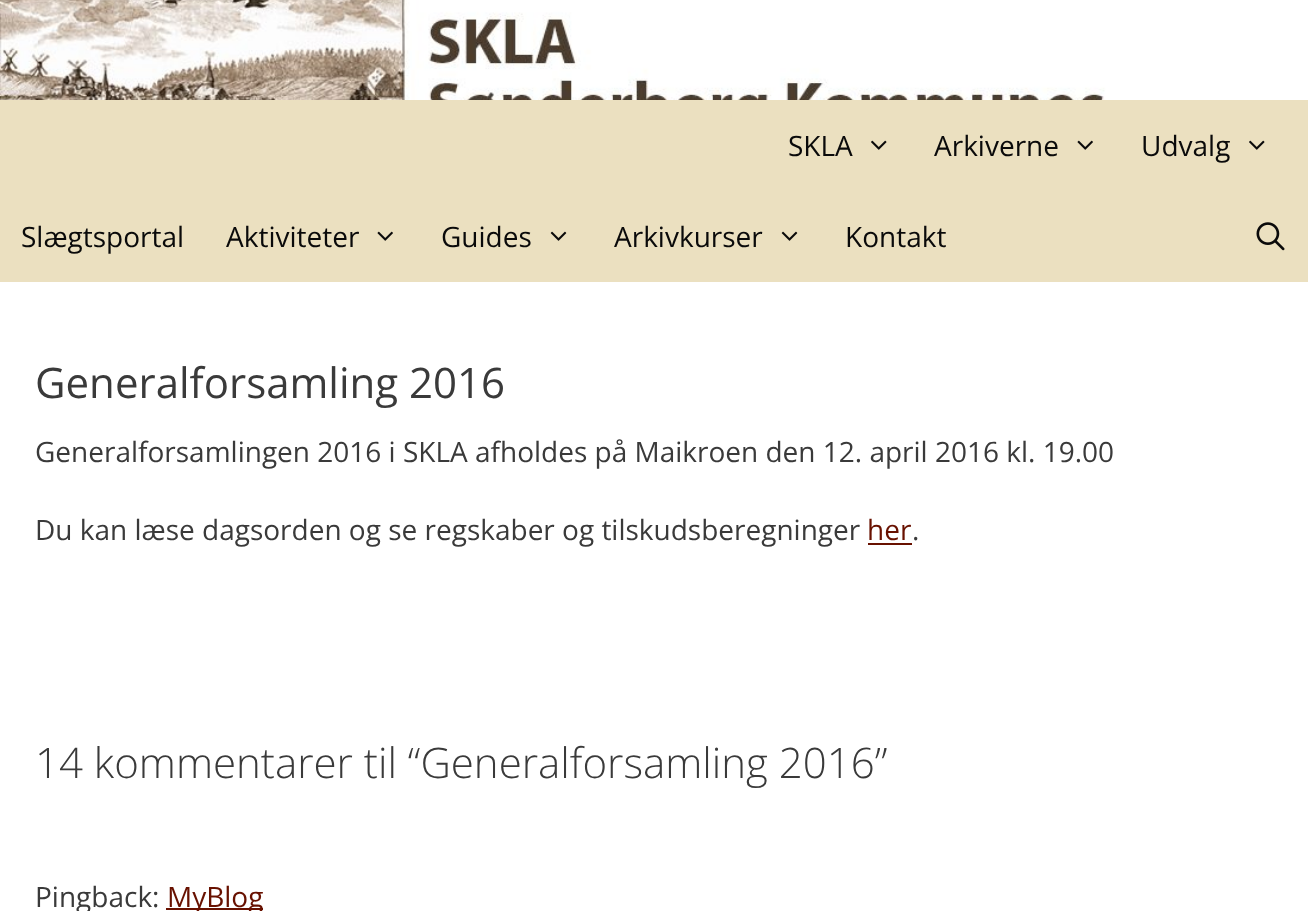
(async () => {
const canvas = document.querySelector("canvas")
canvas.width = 1308
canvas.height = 911
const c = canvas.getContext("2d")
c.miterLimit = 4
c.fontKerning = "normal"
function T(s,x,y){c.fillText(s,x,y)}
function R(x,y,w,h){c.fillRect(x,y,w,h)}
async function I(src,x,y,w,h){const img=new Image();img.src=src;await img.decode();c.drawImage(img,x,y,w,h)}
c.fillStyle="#fff"
R(0,0,1308,911)
await I("1.png",0,0,1295,100)
c.fillStyle="#ebe0c0"
R(0,100,1308,182)
c.font="28px Open Sans"
c.fillStyle="#0a0a0a"
T("SKLA",788,156)
await I("2.png",871,140,16,10)
T("Arkiverne",934,156)
await I("3.png",1077,140,16,10)
T("Udvalg",1141,156)
await I("2.png",1249,140,16,10)
T("Slægtsportal",21,247)
T("Aktiviteter",226,247)
await I("3.png",377,231,16,10)
T("Guides",441,247)
await I("4.png",550,231,17,10)
T("Arkivkurser",614,247)
await I("4.png",781,231,17,10)
T("Kontakt",845,247)
await I("5.png",1256,222,29,29)
c.font="42px Open Sans"
c.fillStyle="#3a3a3a"
T("Generalforsamling 2016",35,398)
c.font="28px Open Sans"
T("Generalforsamlingen 2016 i SKLA afholdes på Maikroen den 12. april 2016 kl. 19.00",35,462)
T("Du kan læse dagsorden og se regskaber og tilskudsberegninger",35,540)
c.fillStyle="#681100"
T("her",867,540)
R(868,543,44,2)
c.fillStyle="#3a3a3a"
T(".",912,540)
c.font="300 42px Open Sans"
T("14 kommentarer til “Generalforsamling 2016”",35,778)
c.font="28px Open Sans"
T("Pingback:",35,907)
c.fillStyle="#681100"
R(166,908,97,2)
T("MyBlog",167,907)
})()
